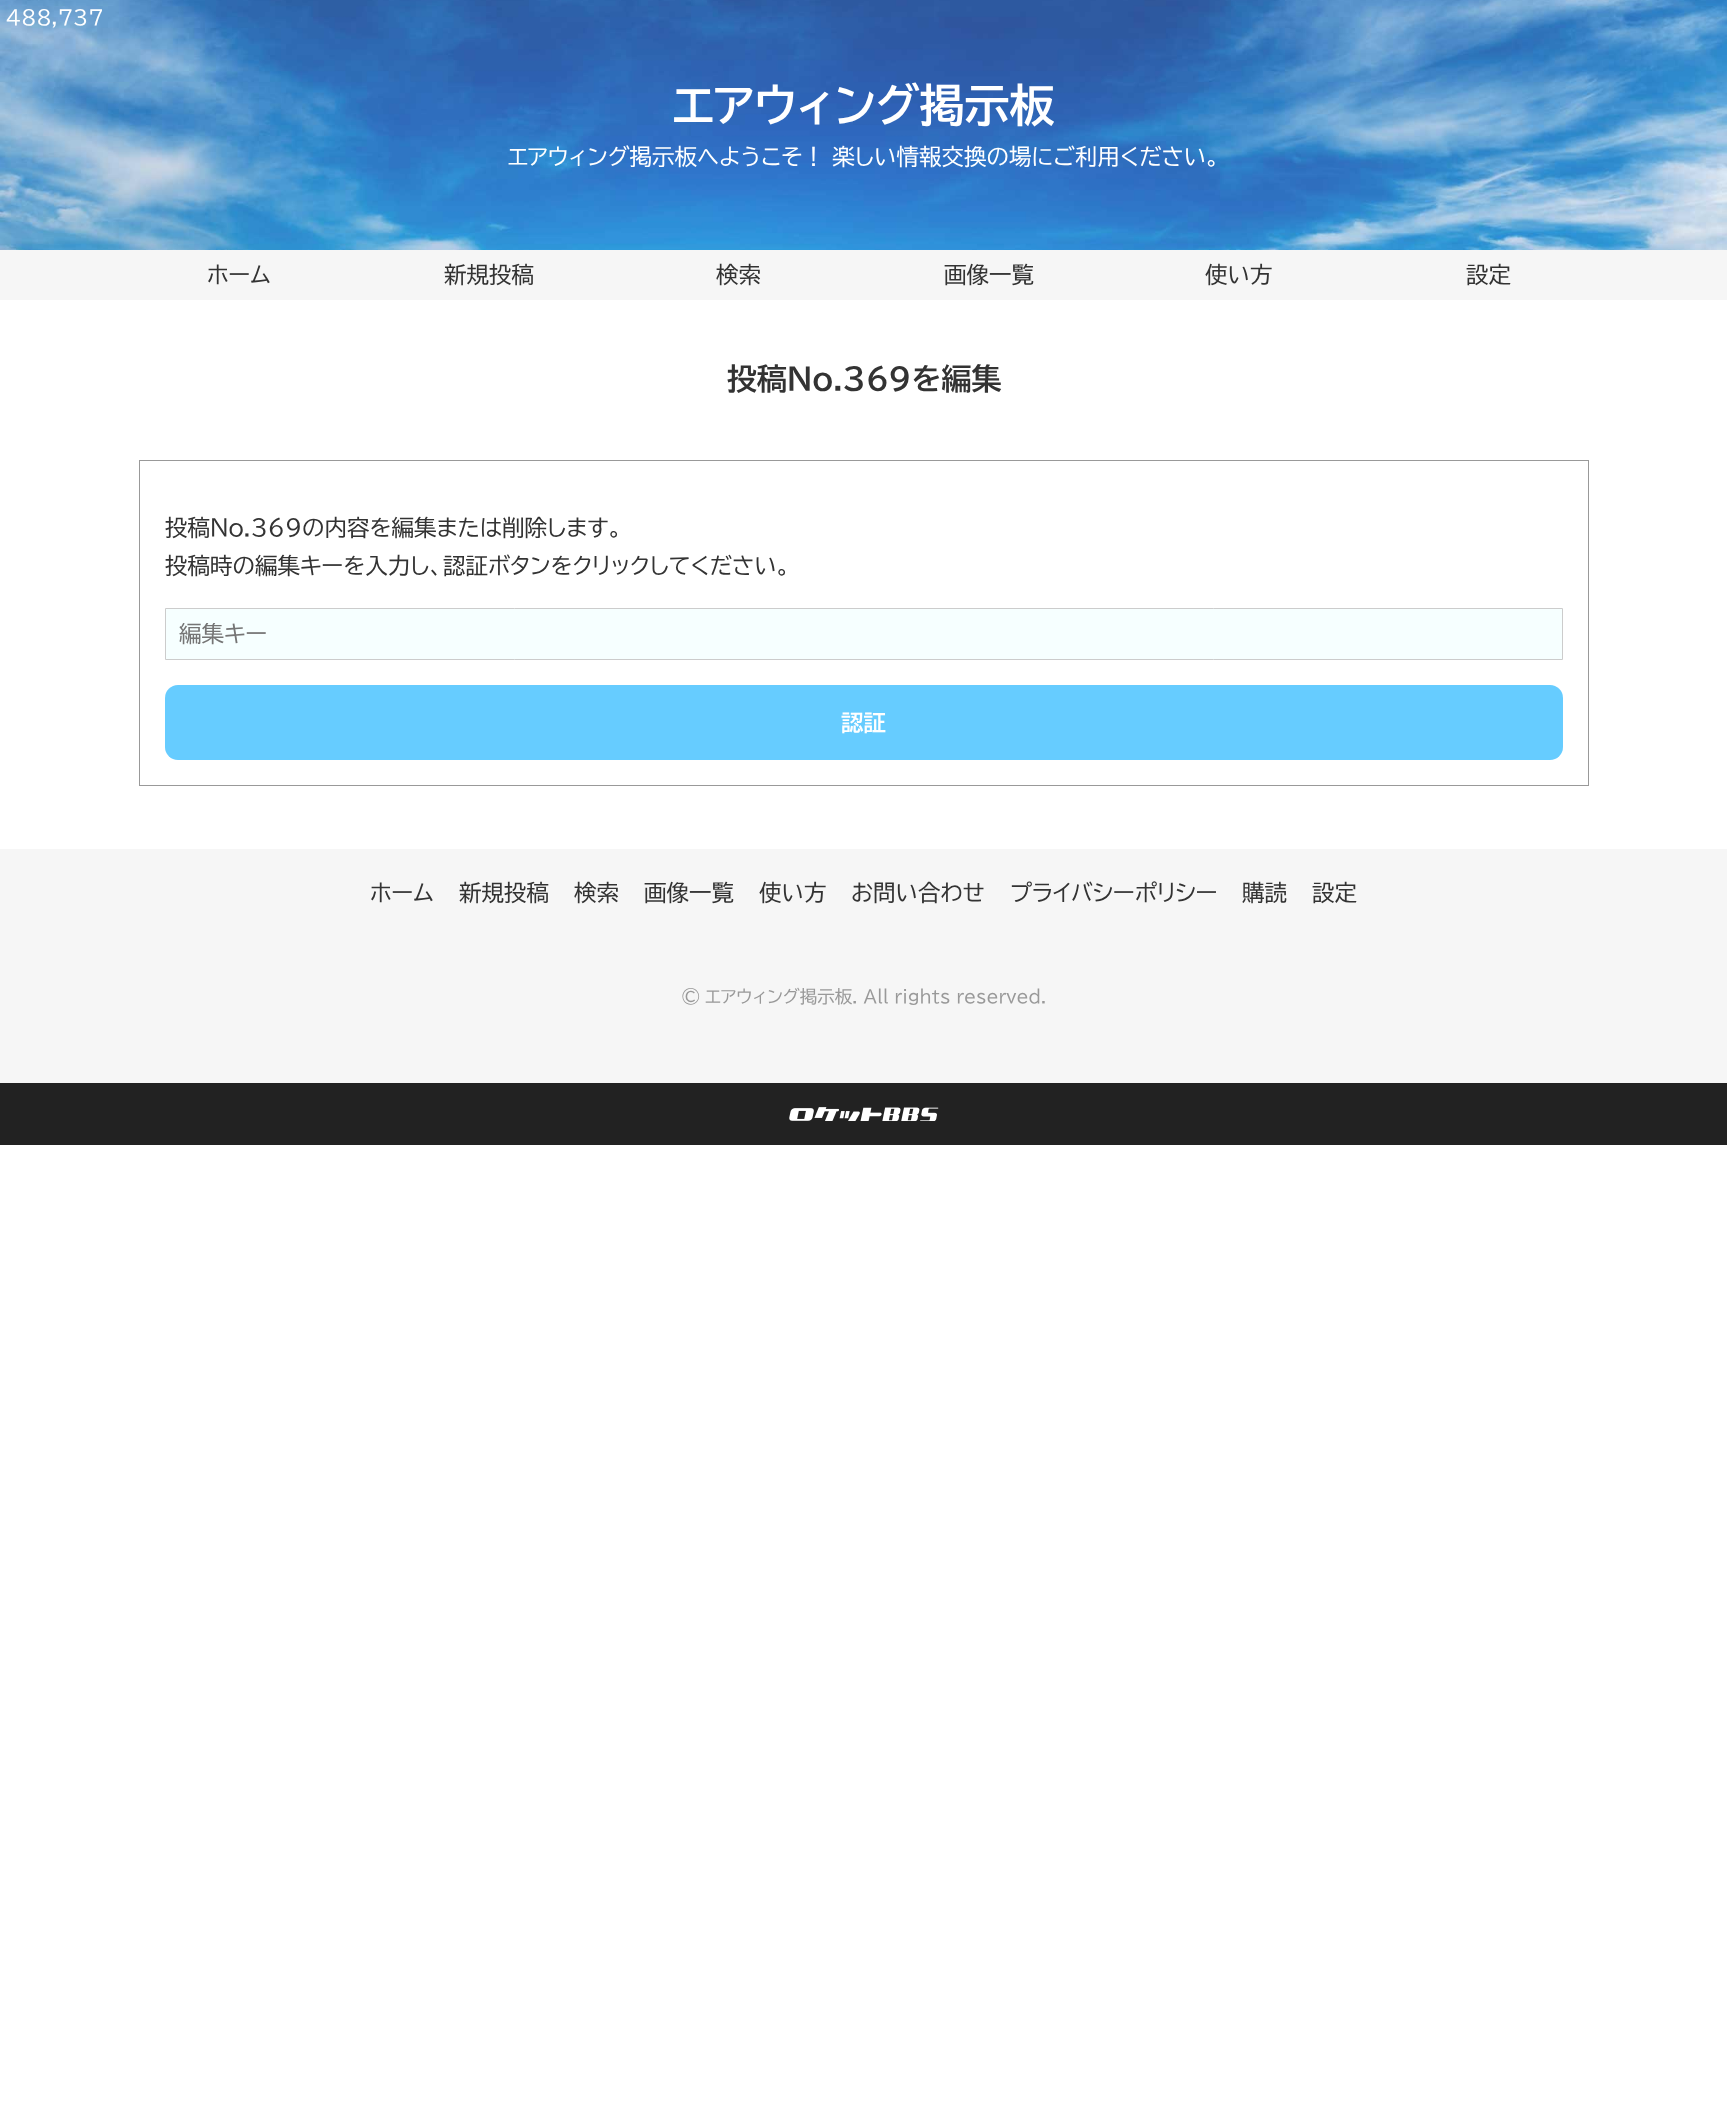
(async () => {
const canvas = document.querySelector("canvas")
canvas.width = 1727
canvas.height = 2104
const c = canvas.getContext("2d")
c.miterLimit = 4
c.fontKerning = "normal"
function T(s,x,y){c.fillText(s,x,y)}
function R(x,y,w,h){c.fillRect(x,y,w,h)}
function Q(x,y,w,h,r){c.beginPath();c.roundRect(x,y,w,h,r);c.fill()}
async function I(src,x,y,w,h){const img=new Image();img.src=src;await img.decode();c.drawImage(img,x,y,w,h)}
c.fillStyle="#fff"
R(0,0,1727,2104)
await I("1.png",0,0,1727,250)
c.font="20px BIZ UDPGothic"
T("488,737",6,25)
c.font="bold 45px BIZ UDPGothic"
T("エアウィング掲示板",673,122)
c.font="22.5px BIZ UDPGothic"
T("エアウィング掲示板へようこそ！ 楽しい情報交換の場にご利用ください。",508,165)
c.fillStyle="#f6f6f6"
R(0,250,1727,50)
c.fillStyle="#333"
T("ホーム",207,283)
T("新規投稿",444,283)
T("検索",716,283)
T("画像一覧",944,283)
T("使い方",1205,283)
T("設定",1466,283)
c.font="bold 30px BIZ UDPGothic"
T("投稿No.369を編集",727,390)
c.strokeStyle="#999"
c.strokeRect(139.5,460.5,1449,325)
c.font="22.5px BIZ UDPGothic"
T("投稿No.369の内容を編集または削除します。",165,536)
T("投稿時の編集キーを入力し、認証ボタンをクリックしてください。",165,574)
c.fillStyle="#f6ffff"
c.beginPath()
c.rect(165.5,608.5,1397,51)
c.fill()
c.strokeStyle="#ccc"
c.stroke()
c.save()
c.beginPath()
c.rect(179,623,1370,22)
c.clip()
c.fillStyle="#757575"
T("編集キー",179,642)
c.restore()
c.fillStyle="#6cf"
Q(165,685,1398,75,13)
c.font="bold 22.5px BIZ UDPGothic"
c.fillStyle="#fff"
T("認証",841,731)
c.fillStyle="#f6f6f6"
R(0,849,1727,234)
c.font="22.5px BIZ UDPGothic"
c.fillStyle="#333"
T("ホーム",370,901)
T("新規投稿",459,901)
T("検索",574,901)
T("画像一覧",644,901)
T("使い方",759,901)
T("お問い合わせ",851,901)
T("プライバシーポリシー",1010,901)
T("購読",1242,901)
T("設定",1312,901)
c.font="17.5px BIZ UDPGothic"
c.fillStyle="#999"
T("© エアウィング掲示板. All rights reserved.",682,1003)
c.fillStyle="#222"
R(0,1083,1727,62)
await I("2.png",789,1107,150,14)
})()
